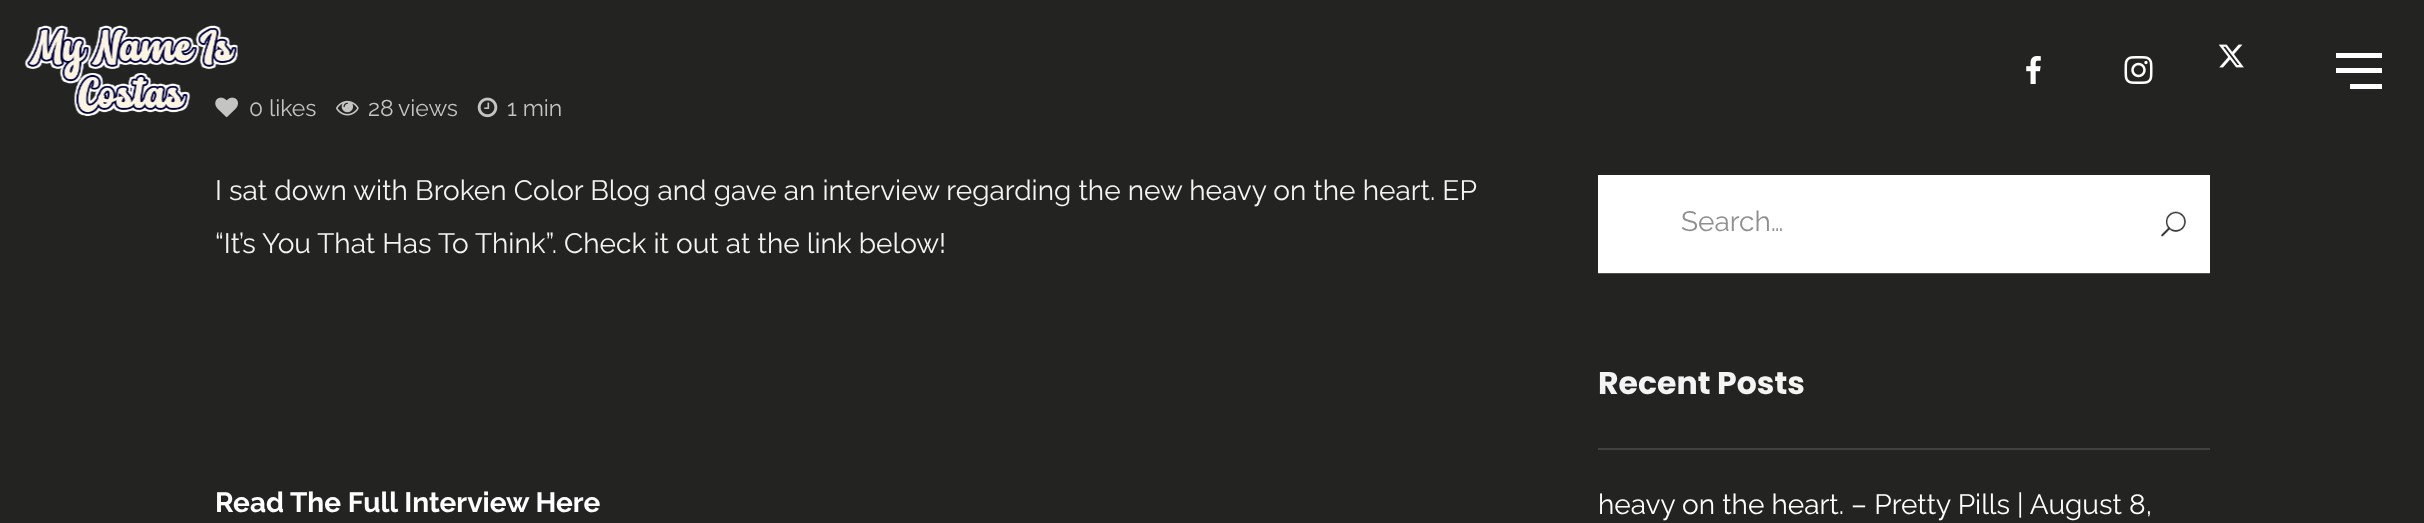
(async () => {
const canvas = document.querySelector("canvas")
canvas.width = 2424
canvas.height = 523
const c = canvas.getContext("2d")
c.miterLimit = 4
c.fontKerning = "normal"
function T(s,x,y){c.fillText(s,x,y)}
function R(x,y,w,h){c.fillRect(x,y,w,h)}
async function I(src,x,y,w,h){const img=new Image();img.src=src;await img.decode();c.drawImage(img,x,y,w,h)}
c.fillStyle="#232322"
R(0,0,2424,523)
await I("5.png",215,97,23,21)
await I("1.png",24,25,214,91)
await I("2.png",2026,56,15,28)
await I("3.png",2124,56,29,28)
await I("4.png",2218,44,26,24)
c.fillStyle="#fff"
R(2336,53,46,5)
R(2336,68,46,5)
R(2350,84,32,5)
c.fillStyle="#4f4f4e"
R(1598,273,612,1)
c.font="23px Raleway"
c.fillStyle="#c4c4c4"
T("0 likes",249,116)
await I("6.png",336,100,23,16)
T("28",368,116)
T("views",398,116)
await I("7.png",477,97,21,21)
T("1 min",507,116)
c.font="28px Raleway"
c.fillStyle="#f4f4f4"
T("I sat down with Broken Color Blog and gave an interview regarding the new heavy on the heart. EP",215,200)
T("“It’s You That Has To Think”. Check it out at the link below!",215,253)
c.font="bold 28px Raleway"
c.fillStyle="#fff"
T("Read The Full Interview Here",215,512)
R(1598,175,612,98)
c.font="28px Raleway"
c.fillStyle="#8f8f8f"
T("Search…",1681,231)
await I("8.png",2161,211,25,26)
c.font="bold 31.5px Poppins"
c.fillStyle="#f4f4f4"
T("Recent Posts",1598,394)
c.fillStyle="#424241"
R(1598,448,612,2)
c.font="28px Raleway"
c.fillStyle="#fff"
T("heavy on the heart. – Pretty Pills | August 8,",1598,514)
})()
